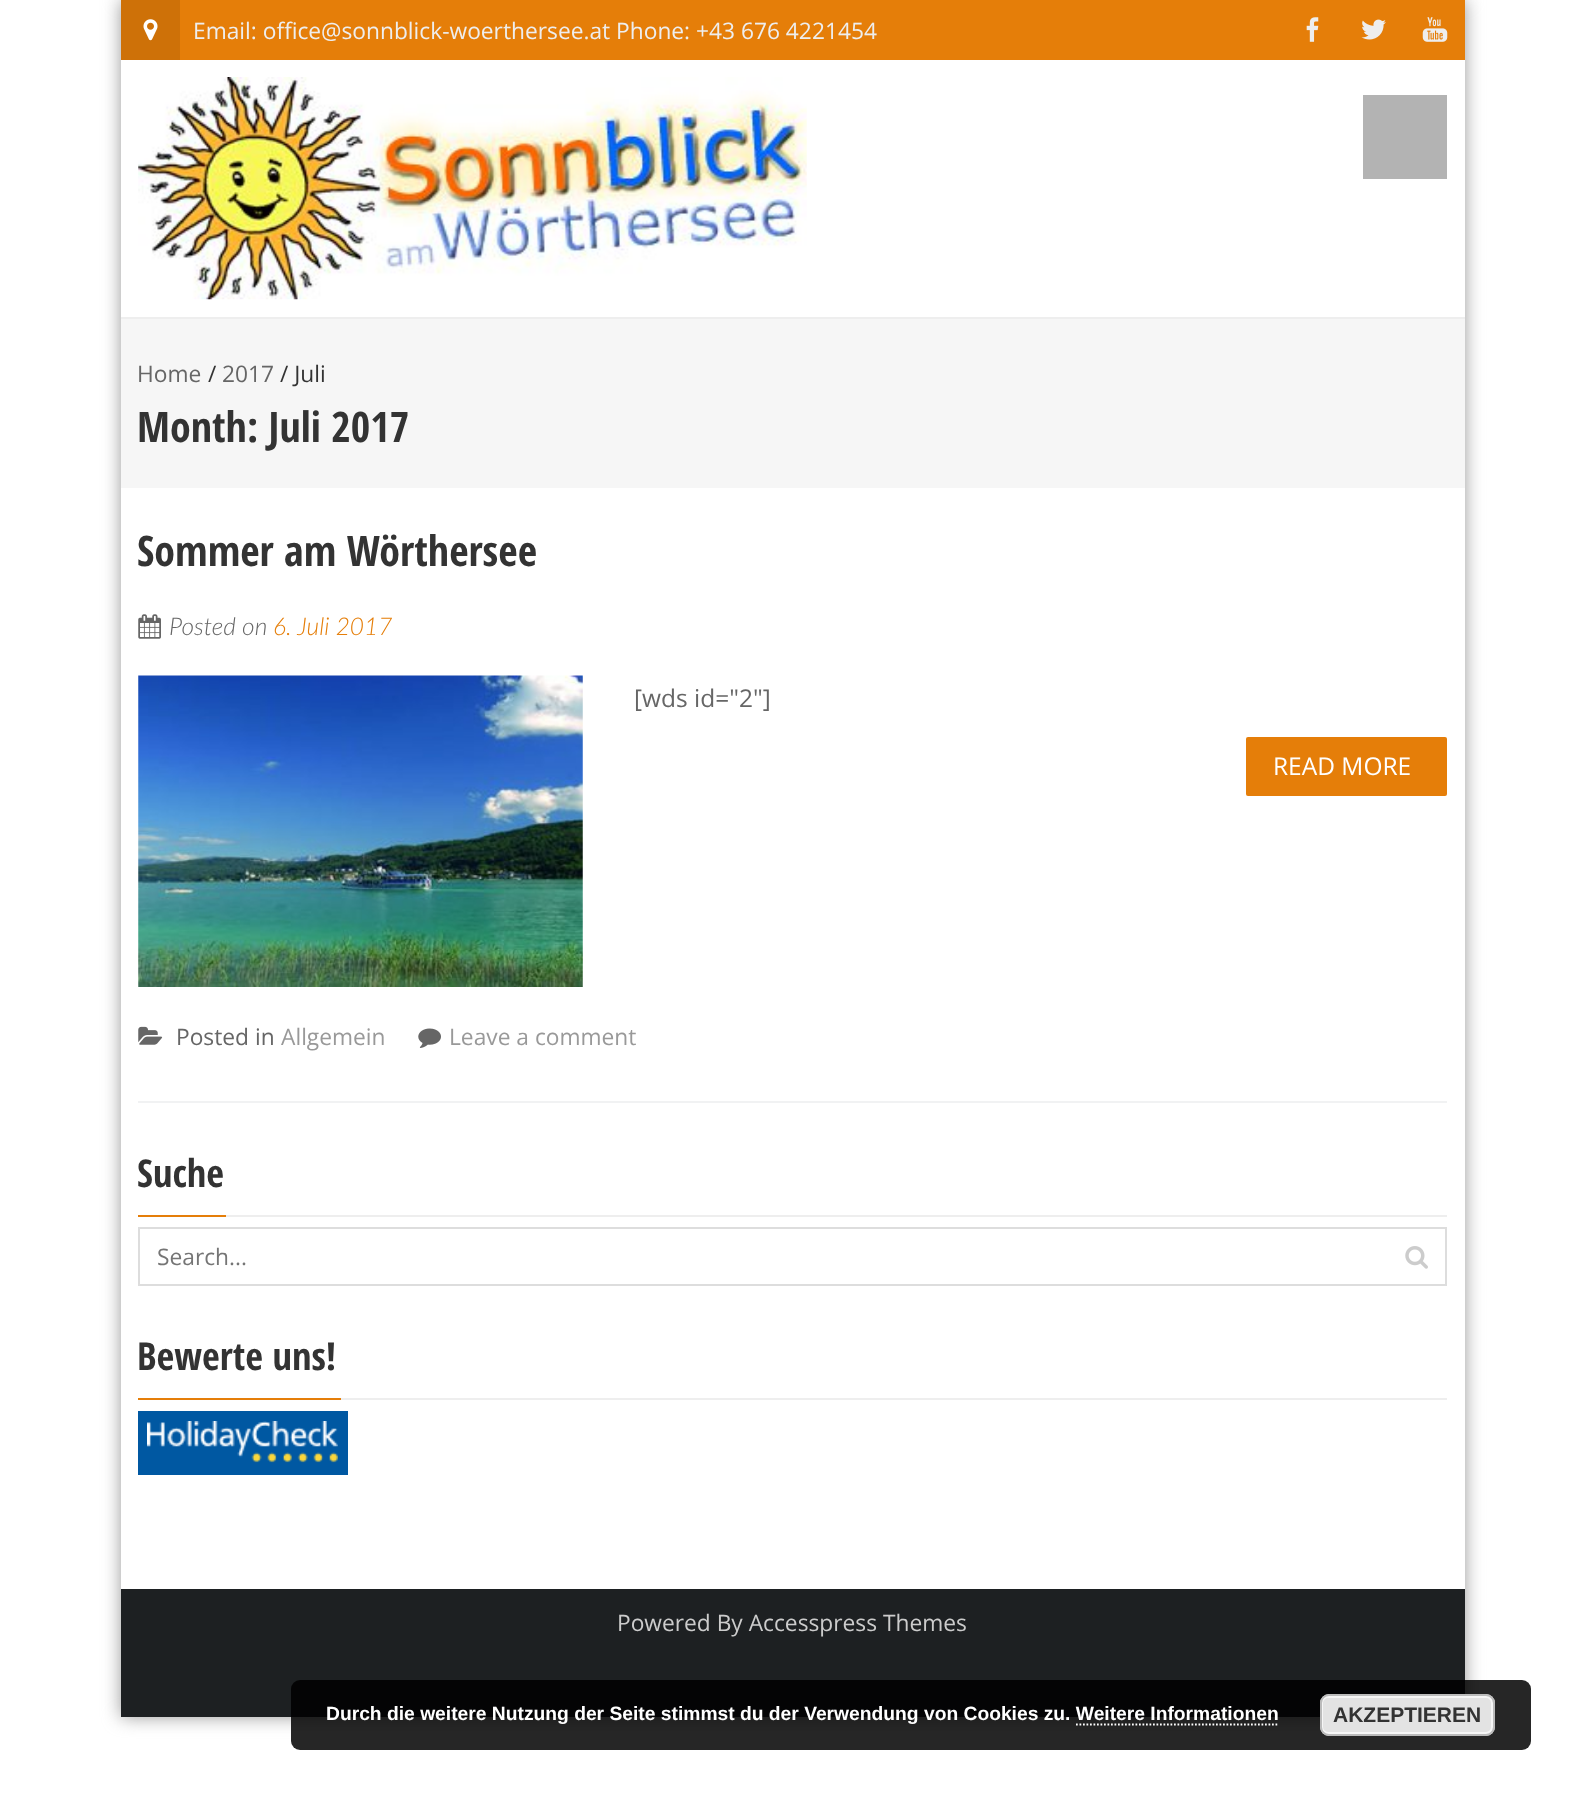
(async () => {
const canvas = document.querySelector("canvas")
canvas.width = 1583
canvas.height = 1801
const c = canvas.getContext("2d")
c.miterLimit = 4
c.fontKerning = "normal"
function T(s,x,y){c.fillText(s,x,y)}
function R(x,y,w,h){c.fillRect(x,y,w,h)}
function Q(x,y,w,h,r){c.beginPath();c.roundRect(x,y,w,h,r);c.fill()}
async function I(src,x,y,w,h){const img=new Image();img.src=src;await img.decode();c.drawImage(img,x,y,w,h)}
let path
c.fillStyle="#fff"
R(0,0,1583,1801)
c.fillStyle="#999"
c.filter="blur(9px)"
c.beginPath()
c.rect(121,0,1344,1717)
c.fill()
c.filter="none"
c.fillStyle="#fff"
R(121,60,1344,1529)
c.fillStyle="#e57e09"
R(180,0,1285,60)
c.fillStyle="#ce7108"
R(121,0,59,60)
await I("1.png",143,19,15,22)
c.font="22.75px Open Sans"
c.fillStyle="#eee"
T("Email: office@sonnblick-woerthersee.at Phone: +43 676 4221454",193,39)
await I("2.png",1306,17,13,25)
await I("3.png",1361,19,25,21)
await I("4.png",1422,17,26,25)
R(121,317,1344,2)
await I("5.png",138,77,669,223)
c.fillStyle="#b3b3b3"
R(1363,95,84,84)
c.fillStyle="#f6f6f6"
R(121,319,1344,169)
c.fillStyle="#666"
T("Home",137,382)
c.fillStyle="#333"
T("/",208,382)
c.fillStyle="#666"
T("2017",222,382)
c.fillStyle="#333"
T("/ Juli",280,382)
c.font="bold 42px Open Sans Condensed"
T("Month: Juli 2017",137,442)
c.fillStyle="#f1f2f3"
R(138,1101,1309,2)
c.fillStyle="#333"
T("Sommer am Wörthersee",137,566)
await I("6.png",138,614,23,25)
c.font="italic 300 24.5px Lato"
c.fillStyle="#666"
T("Posted on",169,635)
c.fillStyle="#e57e09"
T("6. Juli 2017",273,635)
await I("7.png",138,675,445,312)
c.font="24.5px Open Sans"
c.fillStyle="#666"
T("[wds id=\"2\"]",634,707)
c.fillStyle="#e57e09"
Q(1246,737,201,59,2)
c.fillStyle="#fff"
T("READ MORE",1273,775)
await I("8.png",138,1026,25,19)
c.font="22.75px Open Sans"
c.fillStyle="#666"
T("Posted in",176,1045)
c.fillStyle="#999"
T("Allgemein",281,1045)
await I("9.png",418,1028,23,20)
T("Leave a comment",449,1045)
c.fillStyle="#eee"
R(226,1215,1221,2)
c.font="bold 38.5px Open Sans Condensed"
c.fillStyle="#333"
T("Suche",137,1187)
c.fillStyle="#e57e09"
R(138,1215,88,2)
c.strokeStyle="#ddd"
c.lineWidth=2
c.strokeRect(139,1228,1307,57)
c.save()
c.beginPath()
c.rect(158,1241,1204,31)
c.clip()
c.font="22.75px Open Sans"
c.fillStyle="#757575"
T("Search...",157,1265)
c.restore()
await I("10.png",1405,1246,23,23)
c.fillStyle="#eee"
R(341,1398,1106,2)
c.fillStyle="#333"
T("Bewerte uns!",137,1370)
c.fillStyle="#e57e09"
R(138,1398,203,2)
c.fillStyle="#0058a2"
R(138,1411,210,64)
await I("11.png",147,1421,191,42)
c.fillStyle="#1d2022"
R(121,1589,1344,128)
c.font="22.75px Open Sans"
c.fillStyle="#ccc"
T("Powered By Accesspress Themes",617,1631)
c.fillStyle="#000000d9"
Q(291,1680,1240,70,9)
c.font="bold 19.25px Liberation Sans"
c.fillStyle="#fff"
T("Durch die weitere Nutzung der Seite stimmst du der Verwendung von Cookies zu. Weitere Informationen",326,1720)
c.fillStyle="#e3e3e3"
Q(1320,1694,175,42,9)
c.beginPath()
c.roundRect(1322,1697,170,36,6)
c.strokeStyle="#f6f6f6"
c.stroke()
c.beginPath()
c.roundRect(1321,1695,173,40,8)
c.strokeStyle="#bbb"
c.stroke()
c.font="bold 21px Liberation Sans"
c.fillStyle="#333"
T("AKZEPTIEREN",1333,1722)
path = new Path2D("M1076 1724.5h203")
c.strokeStyle="#fff"
c.lineWidth=1.8
c.setLineDash([1.75,1.75])
c.stroke(path)
})()
